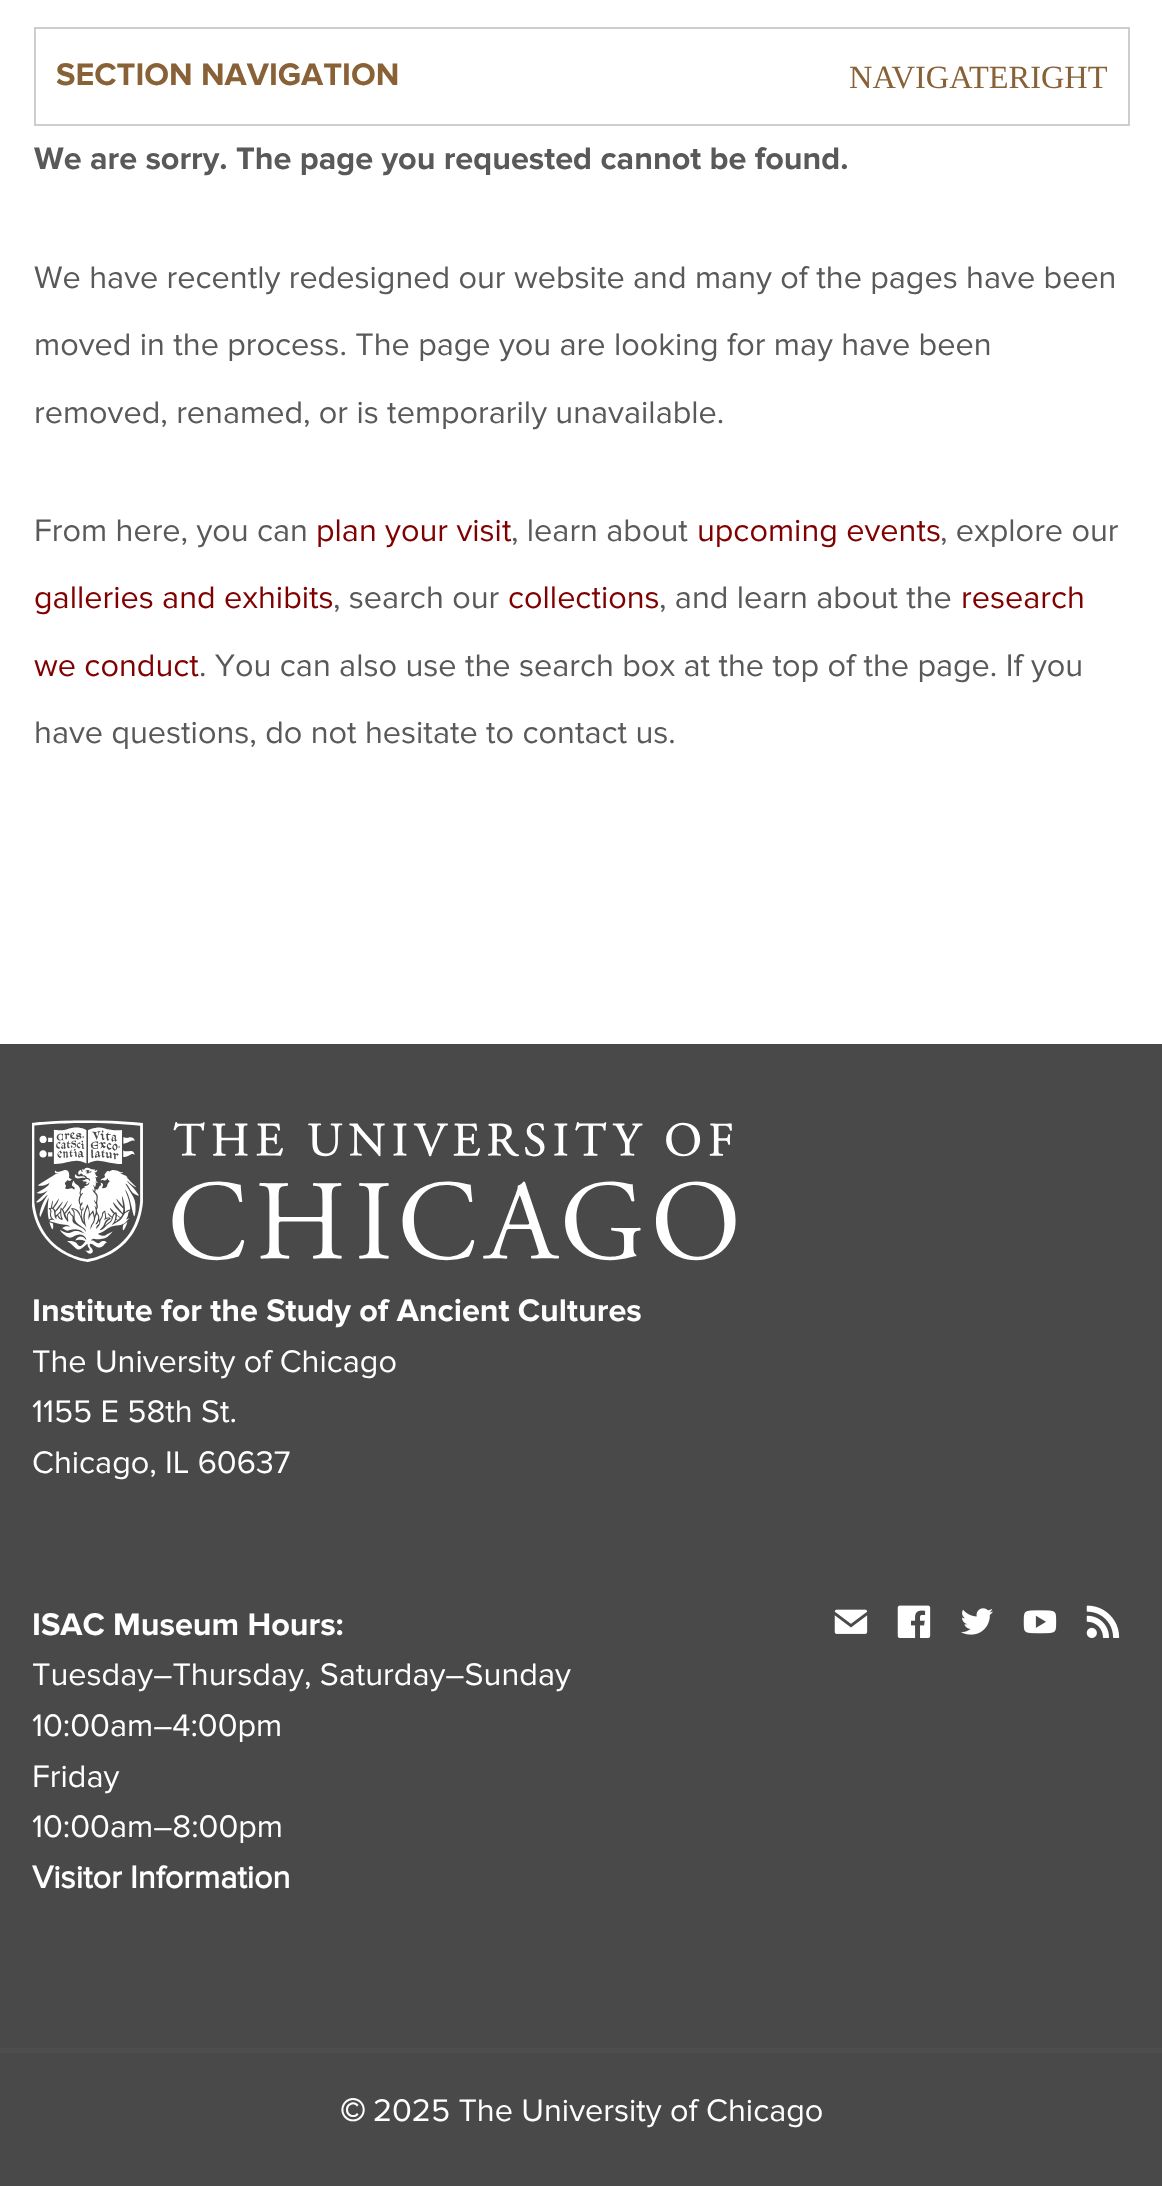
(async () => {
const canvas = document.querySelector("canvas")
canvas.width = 1162
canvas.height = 2186
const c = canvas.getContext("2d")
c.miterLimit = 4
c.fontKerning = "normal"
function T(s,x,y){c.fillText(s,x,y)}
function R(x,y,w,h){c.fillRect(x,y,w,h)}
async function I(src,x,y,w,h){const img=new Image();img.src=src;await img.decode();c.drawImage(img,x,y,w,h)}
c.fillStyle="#fff"
R(0,0,1162,2186)
c.strokeStyle="#cdcdcd"
c.lineWidth=2
c.strokeRect(35,28,1094,97)
c.font="bold 32.4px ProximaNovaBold"
c.fillStyle="#896137"
T("SECTION NAVIGATION",56,85)
c.font="32.4px Liberation Serif"
T("NAVIGATERIGHT",849,88)
c.font="bold 32.4px ProximaNovaBold"
c.fillStyle="#595959"
T("We are sorry. The page you requested cannot be found.",34,169)
c.font="32.4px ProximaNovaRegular"
T("We have recently redesigned our website and many of the pages have been",34,288)
T("moved in the process. The page you are looking for may have been",34,355)
T("removed, renamed, or is temporarily unavailable.",34,423)
T("From here, you can",34,541)
c.fillStyle="#800000"
T("plan your visit",316,541)
c.fillStyle="#595959"
T(", learn about",511,541)
c.fillStyle="#800000"
T("upcoming events",697,541)
c.fillStyle="#595959"
T(", explore our",940,541)
c.fillStyle="#800000"
T("galleries and exhibits",34,608)
c.fillStyle="#595959"
T(", search our",333,608)
c.fillStyle="#800000"
T("collections",508,608)
c.fillStyle="#595959"
T(", and learn about the",659,608)
c.fillStyle="#800000"
T("research",961,608)
T("we conduct",34,676)
c.fillStyle="#595959"
T(". You can also use the search box at the top of the page. If you",199,676)
T("have questions, do not hesitate to contact us.",34,743)
c.fillStyle="#494949"
R(0,1044,1162,1142)
await I("1.png",32,1120,704,142)
c.font="bold 32.4px ProximaNovaBold"
c.fillStyle="#fff"
T("Institute for the Study of Ancient Cultures",32,1321)
c.font="32.4px ProximaNovaRegular"
T("The University of Chicago",32,1372)
T("1155 E 58th St.",32,1422)
T("Chicago, IL 60637",32,1473)
c.font="bold 32.4px ProximaNovaBold"
T("ISAC Museum Hours:",32,1635)
c.font="32.4px ProximaNovaRegular"
T("Tuesday–Thursday, Saturday–Sunday",32,1685)
T("10:00am–4:00pm",32,1736)
T("Friday",32,1787)
T("10:00am–8:00pm",32,1837)
c.font="bold 32.4px ProximaNovaRegular"
T("Visitor Information",32,1888)
await I("2.png",834,1609,34,25)
await I("3.png",897,1605,34,33)
await I("4.png",961,1608,32,27)
await I("5.png",1023,1610,34,24)
await I("6.png",1086,1605,34,33)
c.fillStyle="#4d4e4c"
R(0,2048,1162,5)
c.fillStyle="#fff"
T("©",340,2121)
c.font="32.4px ProximaNovaRegular"
T("2025 The University of Chicago",373,2121)
})()
